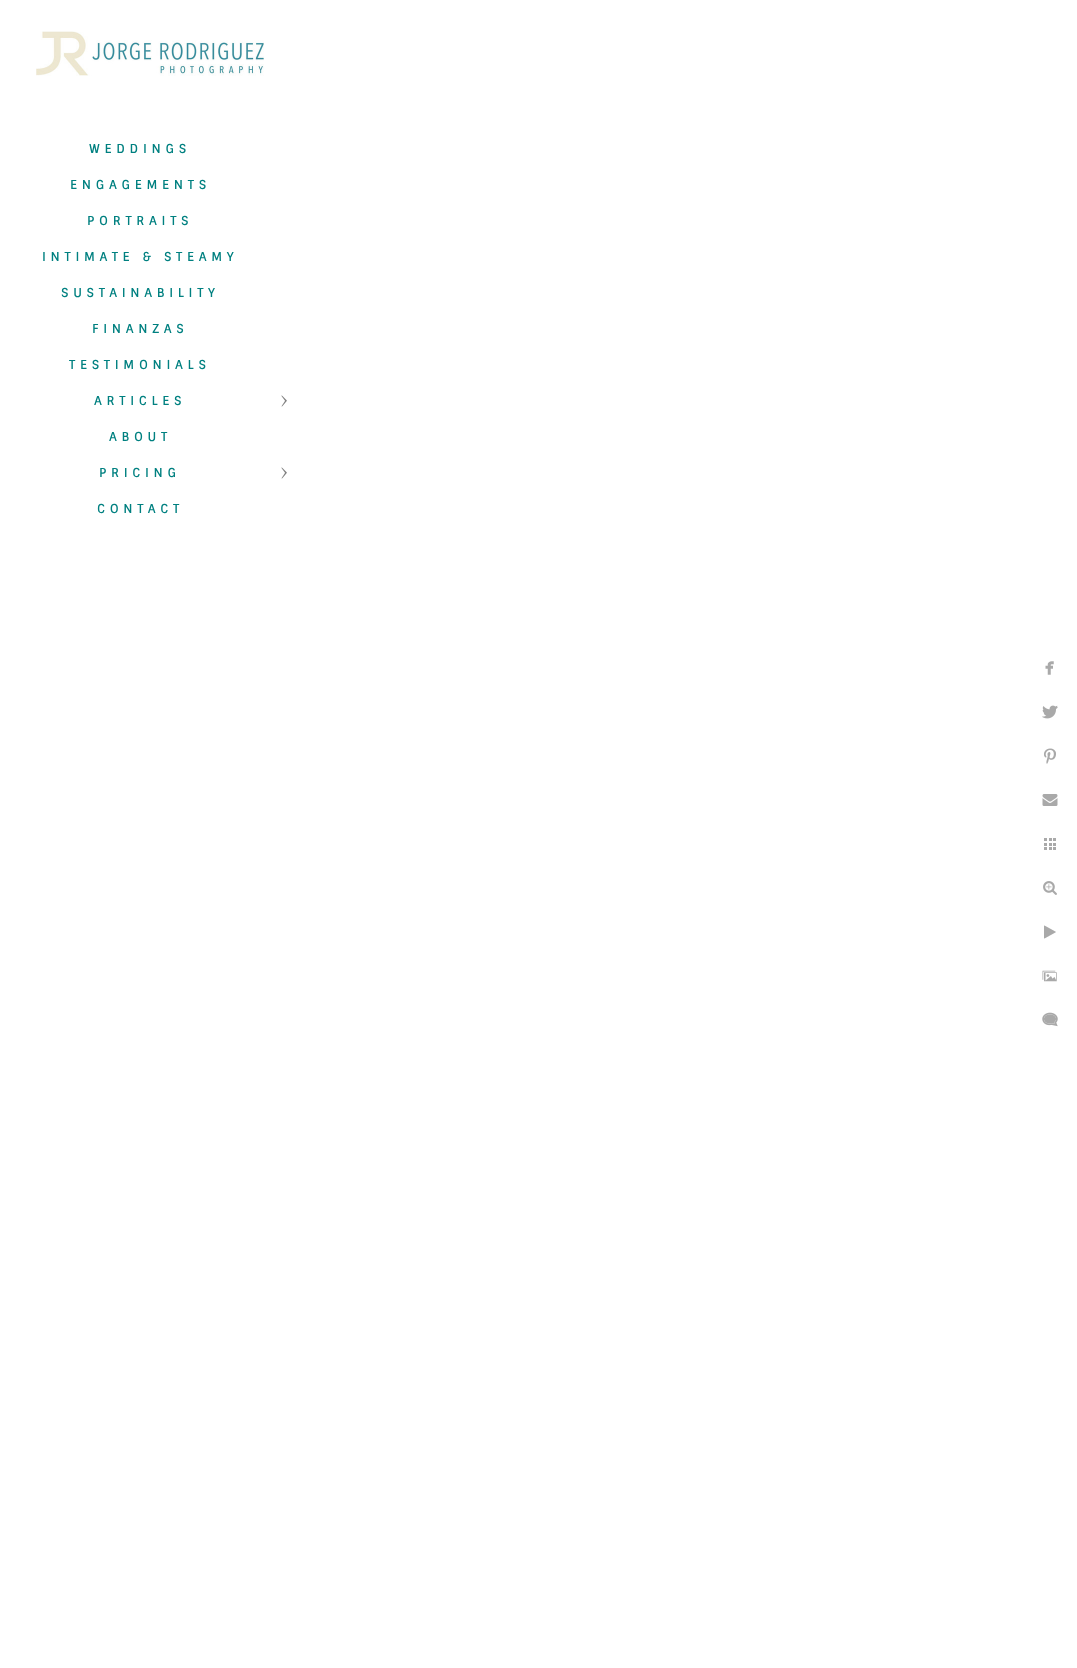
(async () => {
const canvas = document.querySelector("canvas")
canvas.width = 1077
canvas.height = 1668
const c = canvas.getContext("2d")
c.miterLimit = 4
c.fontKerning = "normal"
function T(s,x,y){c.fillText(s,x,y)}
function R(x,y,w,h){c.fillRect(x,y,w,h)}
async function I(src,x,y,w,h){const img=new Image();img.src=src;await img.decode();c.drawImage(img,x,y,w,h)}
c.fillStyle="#fff"
R(0,0,1077,1668)
await I("1.png",36,31,228,45)
c.letterSpacing="5px"
c.font="bold 12px Sintony"
c.fillStyle="#008080"
T("WEDDINGS",89,153)
T("ENGAGEMENTS",70,189)
T("PORTRAITS",87,225)
T("INTIMATE & STEAMY",42,261)
T("SUSTAINABILITY",61,297)
T("FINANZAS",92,333)
T("TESTIMONIALS",69,369)
T("ARTICLES",94,405)
await I("2.png",281,395,6,12)
T("ABOUT",109,441)
T("PRICING",99,477)
await I("2.png",281,467,6,12)
T("CONTACT",97,513)
await I("3.png",1045,661,9,14)
await I("4.png",1042,705,16,14)
await I("5.png",1044,748,12,16)
await I("6.png",1042,794,16,12)
await I("7.png",1044,838,12,12)
await I("8.png",1043,881,14,14)
await I("9.png",1044,925,12,14)
await I("10.png",1042,970,15,12)
await I("11.png",1042,1012,16,15)
})()
